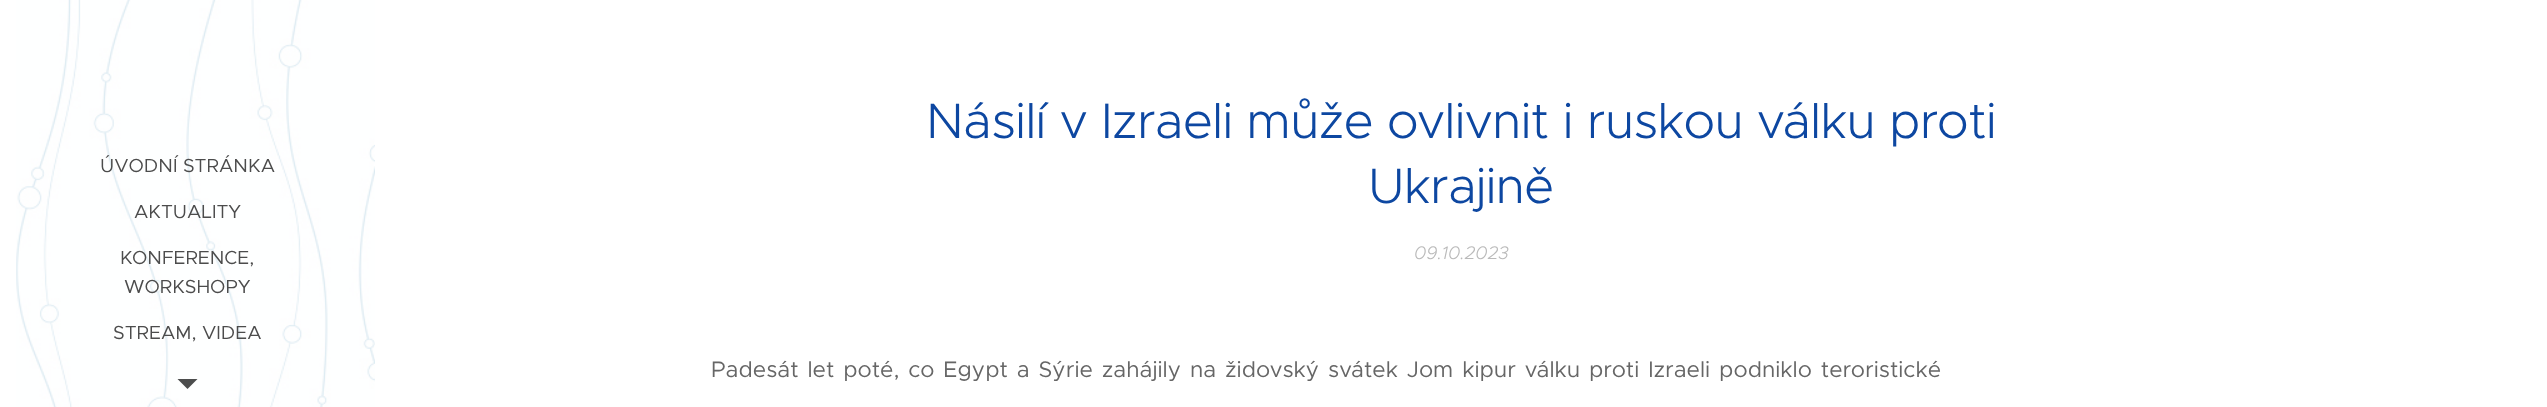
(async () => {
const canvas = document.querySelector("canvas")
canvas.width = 2547
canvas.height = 407
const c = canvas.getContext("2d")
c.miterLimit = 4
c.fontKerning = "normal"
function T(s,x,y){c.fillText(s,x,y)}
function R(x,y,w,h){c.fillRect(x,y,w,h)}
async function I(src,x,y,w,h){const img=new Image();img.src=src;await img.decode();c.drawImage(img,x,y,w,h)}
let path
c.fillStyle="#fff"
R(0,0,2547,407)
await I("1.png",16,0,359,407)
c.font="19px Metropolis"
c.fillStyle="#4c4c4c"
T("ÚVODNÍ STRÁNKA",100,172)
T("AKTUALITY",134,218)
T("KONFERENCE,",120,264)
T("WORKSHOPY",124,293)
T("STREAM, VIDEA",113,339)
c.fillStyle="#4c4d4d"
path = new Path2D("M177.5 379h20l-10 10z")
c.fill(path)
c.letterSpacing="-0.5px"
c.font="300 50px Metropolis"
c.fillStyle="#0d47a1"
T("Násilí v Izraeli může ovlivnit i ruskou válku proti",926,138)
T("Ukrajině",1368,203)
c.letterSpacing="0px"
c.font="italic 300 18.25px Metropolis"
c.fillStyle="#bababa"
T("09.10.2023",1414,259)
c.wordSpacing="2.4px"
c.font="22.5px Metropolis"
c.fillStyle="#666"
T("Padesát let poté, co Egypt a Sýrie zahájily na židovský svátek Jom kipur válku proti Izraeli podniklo teroristické",711,377)
})()
